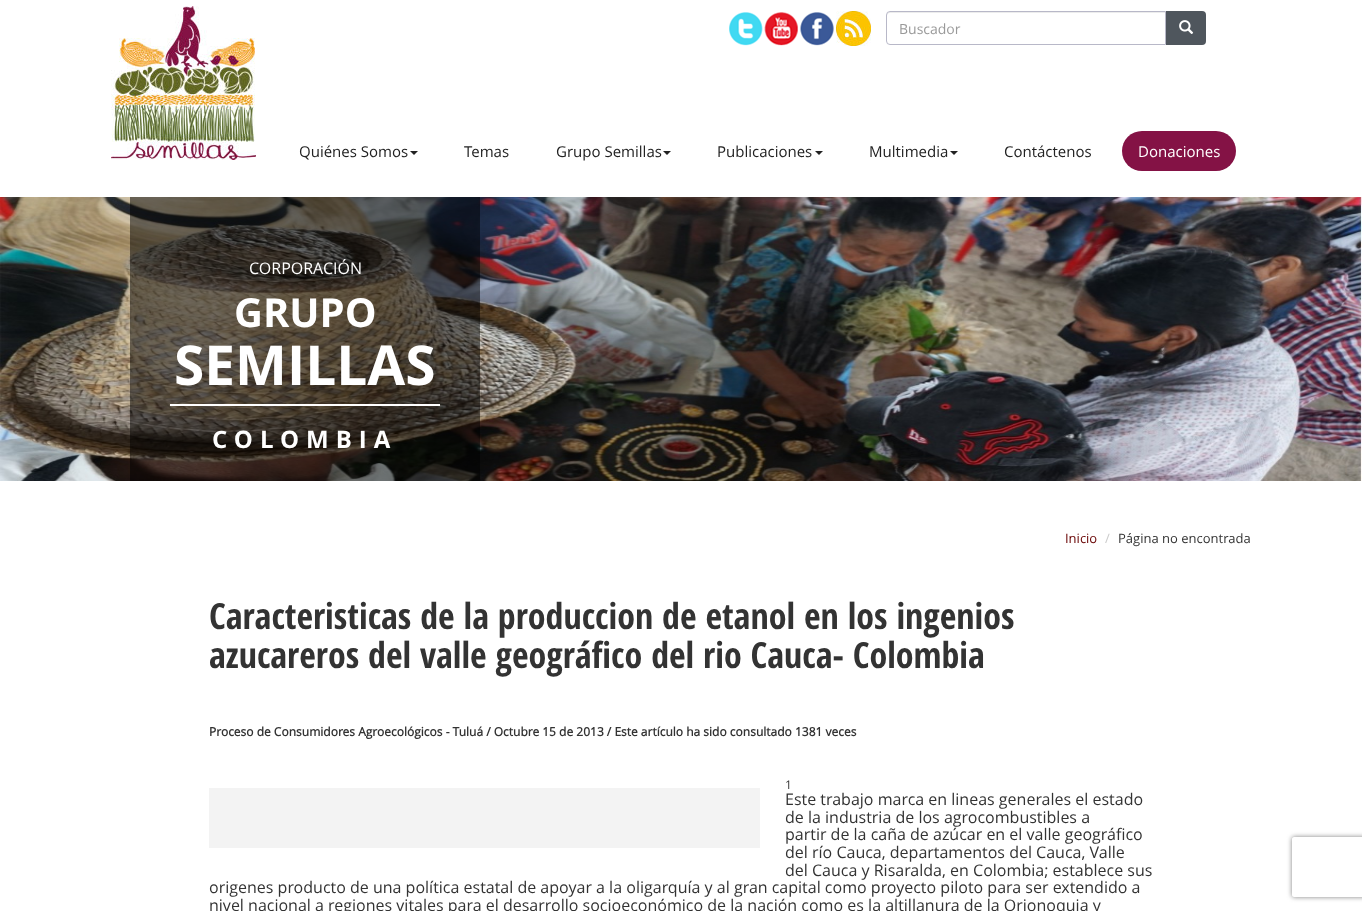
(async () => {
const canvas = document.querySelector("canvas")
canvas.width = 1362
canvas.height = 911
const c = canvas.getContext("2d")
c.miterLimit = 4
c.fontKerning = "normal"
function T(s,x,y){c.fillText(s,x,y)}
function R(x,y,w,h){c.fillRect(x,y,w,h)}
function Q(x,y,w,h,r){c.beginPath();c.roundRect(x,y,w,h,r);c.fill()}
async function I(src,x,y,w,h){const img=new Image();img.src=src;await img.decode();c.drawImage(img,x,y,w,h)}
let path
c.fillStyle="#fff"
R(0,0,1362,911)
await I("1.png",111,6,145,154)
await I("2.png",729,12,34,34)
await I("3.png",764,12,34,34)
await I("4.png",800,12,34,34)
await I("5.png",836,11,35,35)
c.fillStyle="#ececec"
path = new Path2D("M890 13h275v-1h-275c-2 0-3 1-3 3v1c0-2 1-3 3-3z")
c.fill(path)
c.beginPath()
c.roundRect(886.5,11.5,279,33,[3.5,0,0,3.5])
c.strokeStyle="#b8b8c8"
c.stroke()
c.font="14px Open Sans"
c.fillStyle="#999"
T("Buscador",899,34)
c.fillStyle="#4f565d"
c.beginPath()
c.roundRect(1166,11,40,34,[0,4,4,0])
c.fill()
await I("6.png",1179,20,15,14)
c.font="15px Open Sans"
c.fillStyle="#222"
T("Quiénes Somos",299,157)
path = new Path2D("M410 151h8l-4 4z")
c.fill(path)
T("Temas",464,157)
T("Grupo Semillas",556,157)
path = new Path2D("M663 151h8l-4 4z")
c.fill(path)
T("Publicaciones",717,157)
path = new Path2D("M815 151h8l-4 4z")
c.fill(path)
T("Multimedia",869,157)
path = new Path2D("M950 151h8l-4 4z")
c.fill(path)
T("Contáctenos",1004,157)
c.fillStyle="#841245"
Q(1122,131,114,40,20)
c.fillStyle="#fff"
T("Donaciones",1138,157)
await I("7.png",0,197,1362,284)
c.fillStyle="#00000080"
R(130,197,350,284)
c.font="16px Open Sans"
c.fillStyle="#fff"
T("CORPORACIÓN",249,274)
c.font="bold 40px 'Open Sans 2'"
T("GRUPO",234,327)
c.font="bold 55px 'Open Sans 2'"
T("SEMILLAS",174,385)
R(170,404,270,2)
c.letterSpacing="7px"
c.font="bold 24px 'Open Sans 2'"
T("COLOMBIA",212,448)
c.letterSpacing="0px"
c.font="13px Open Sans"
c.fillStyle="#670000"
T("Inicio",1065,543)
c.fillStyle="#ccc"
T("/",1105,543)
c.fillStyle="#333"
T("Página no encontrada",1118,543)
c.font="bold 36px Open Sans Condensed"
T("Caracteristicas de la produccion de etanol en los ingenios",209,629)
T("azucareros del valle geográfico del rio Cauca- Colombia",209,668)
c.font="bold 12px Open Sans"
T("Proceso de Consumidores Agroecológicos - Tuluá / Octubre 15 de 2013 / Este artículo ha sido consultado 1381 veces",209,736)
c.font="12px Open Sans"
T("1",785,789)
c.fillStyle="#f3f3f3"
R(209,788,551,60)
c.font="16px Open Sans"
c.fillStyle="#333"
T("Este trabajo marca en lineas generales el estado",785,805)
T("de la industria de los agrocombustibles a",785,823)
T("partir de la caña de azúcar en el valle geográfico",785,840)
T("del río Cauca, departamentos del Cauca, Valle",785,858)
T("del Cauca y Risaralda, en Colombia; establece sus",785,876)
T("origenes producto de una política estatal de apoyar a la oligarquía y al gran capital como proyecto piloto para ser extendido a",209,893)
T("nivel nacional a regiones vitales para el desarrollo socioeconómico de la nación como es la altillanura de la Orionoquia y",209,911)
c.save()
path = new Path2D("M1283 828h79v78h-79zm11 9h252c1 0 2 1 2 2v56c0 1-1 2-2 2h-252c-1 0-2-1-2-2v-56c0-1 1-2 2-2z")
c.clip(path,"evenodd")
c.fillStyle="#808080"
c.filter="blur(2.5px)"
c.beginPath()
c.roundRect(1292,837,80,60,2)
c.fill()
c.filter="none"
c.restore()
})()
